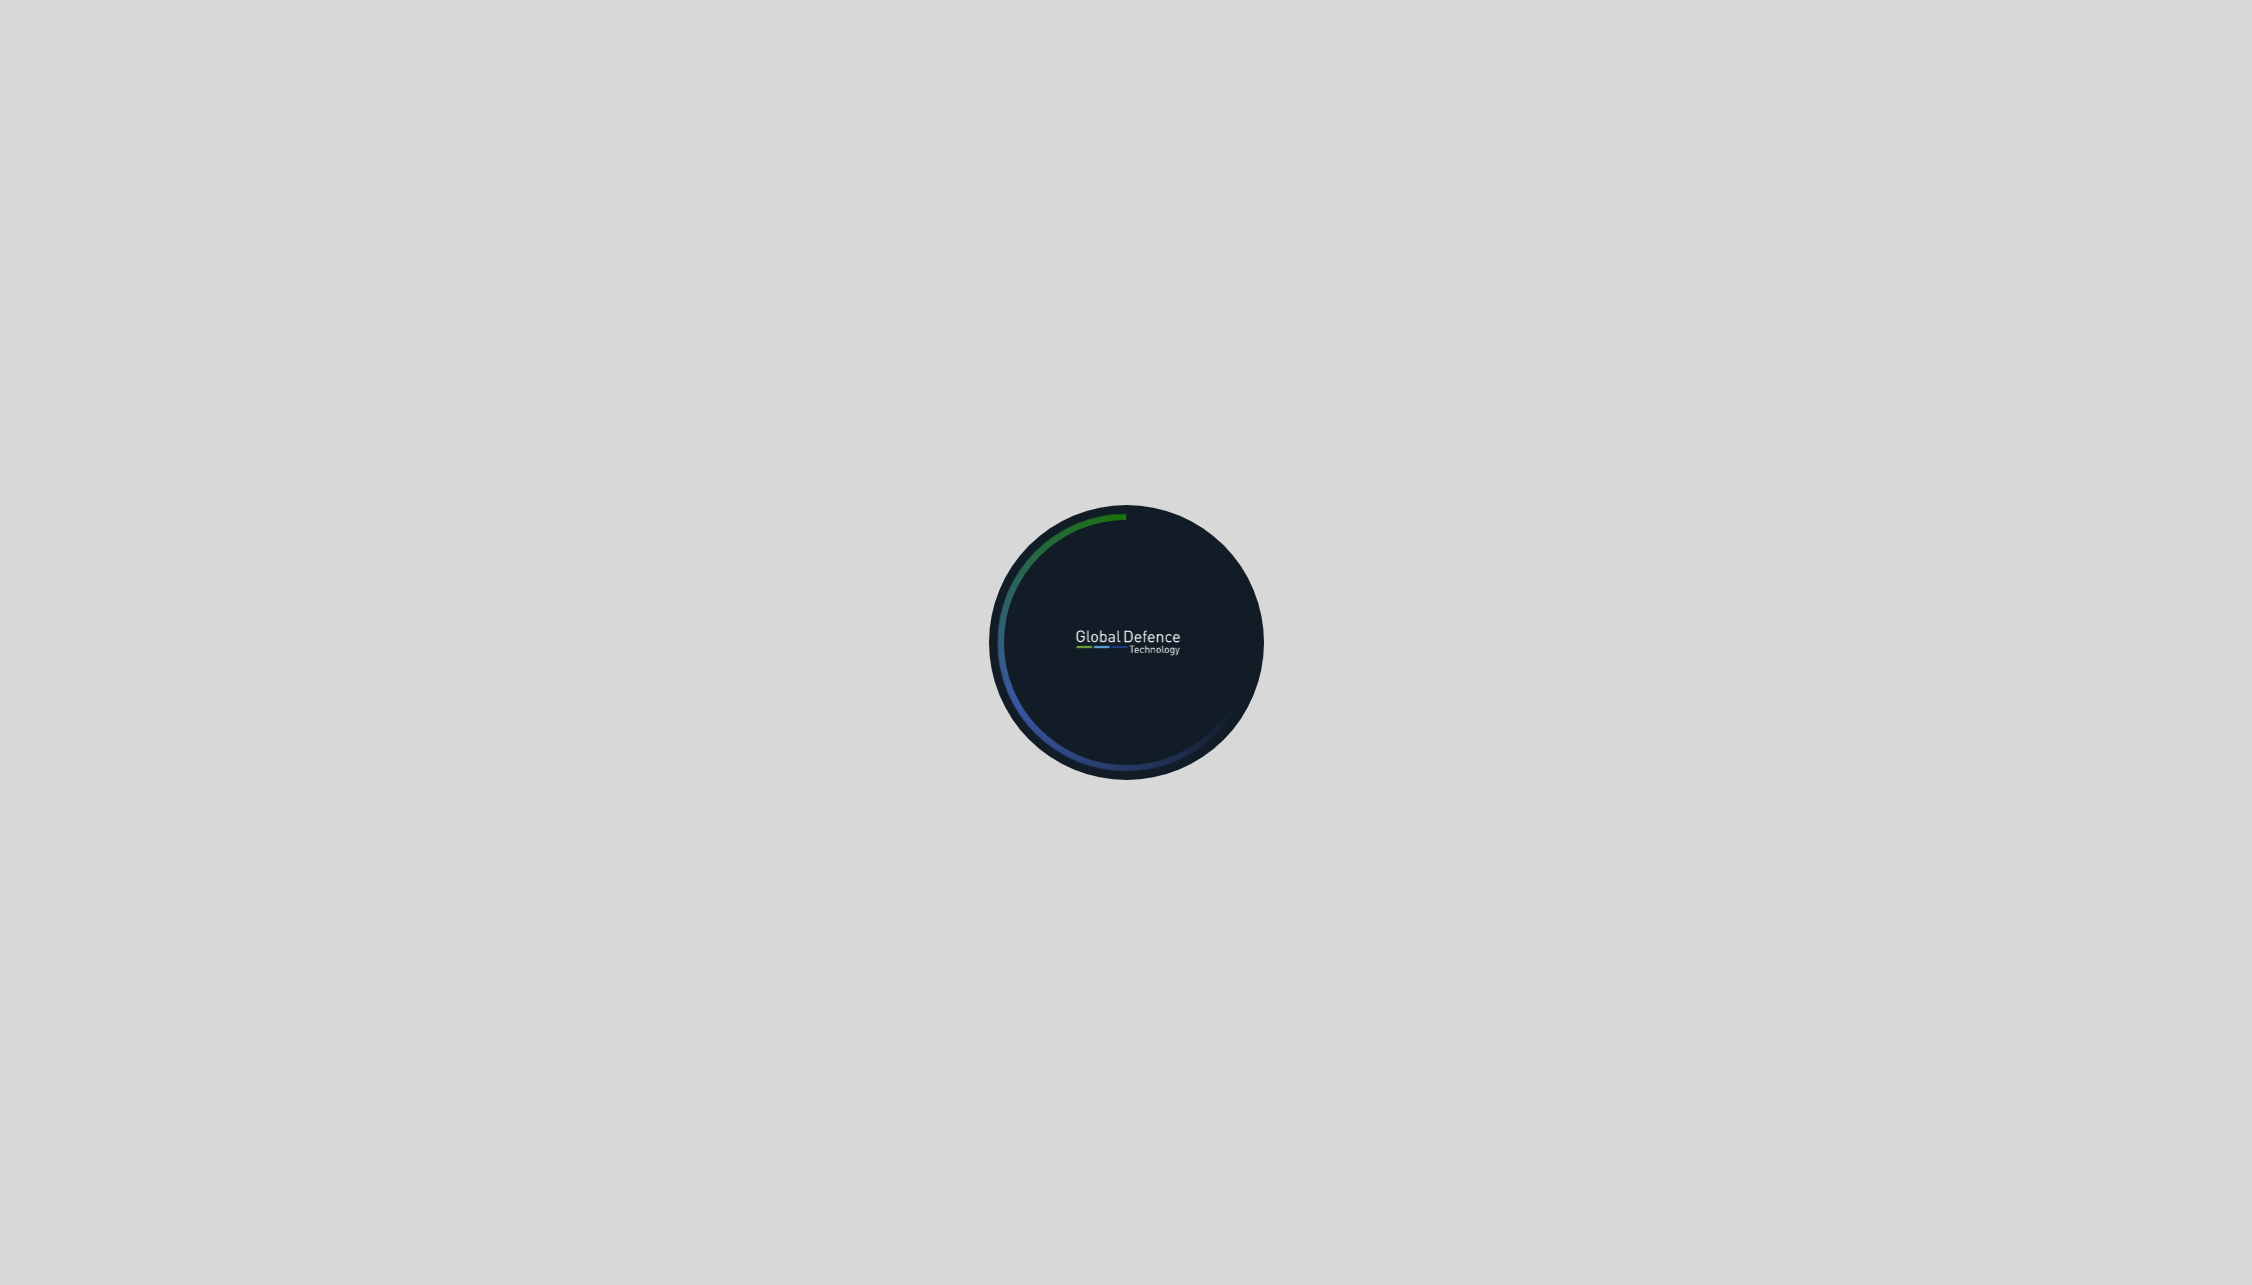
(async () => {
const canvas = document.querySelector("canvas")
canvas.width = 2252
canvas.height = 1285
const c = canvas.getContext("2d")
c.miterLimit = 4
c.fontKerning = "normal"
function R(x,y,w,h){c.fillRect(x,y,w,h)}
async function I(src,x,y,w,h){const img=new Image();img.src=src;await img.decode();c.drawImage(img,x,y,w,h)}
c.fillStyle="#d8d8d8"
R(0,0,2252,1285)
c.fillStyle="#121c26"
c.beginPath()
c.arc(1126.5,642.5,137.5,0,7)
c.fill()
await I("1.png",997,513,235,259)
c.beginPath()
c.arc(1126.5,642.5,122.5,0,7)
c.fill()
await I("2.png",1075,630,106,26)
})()
